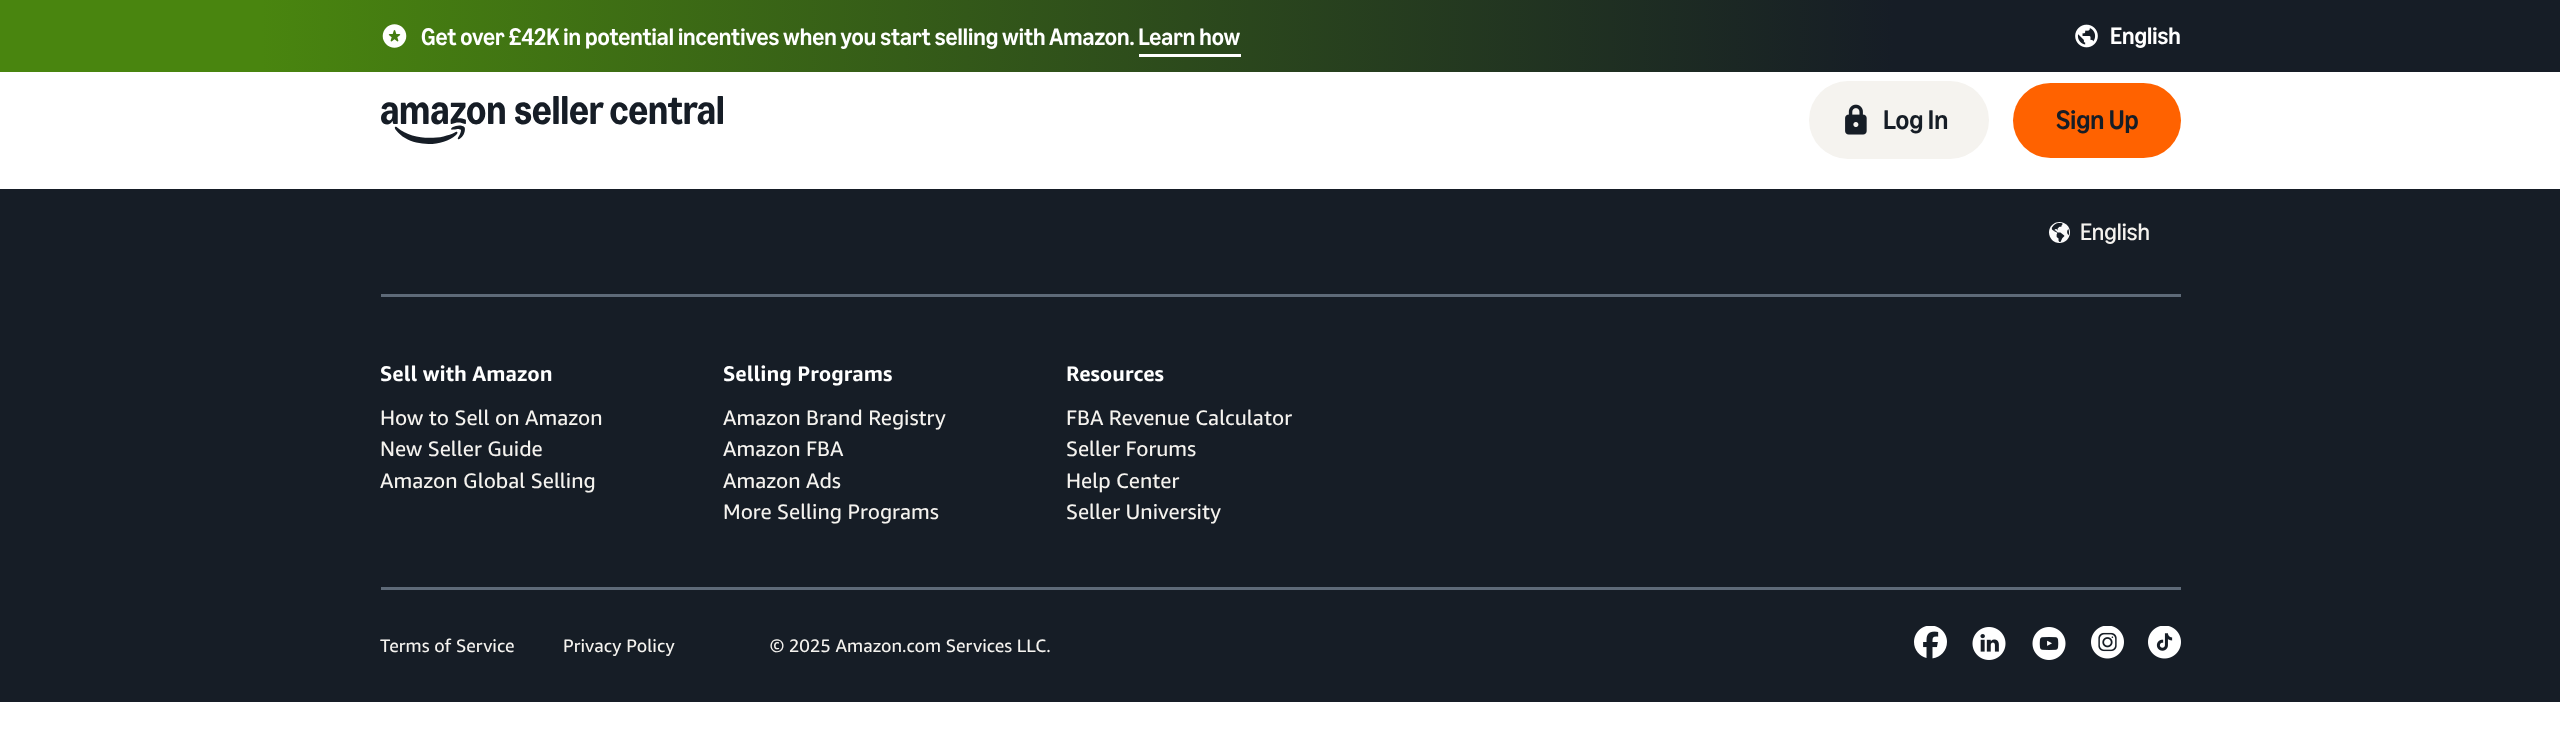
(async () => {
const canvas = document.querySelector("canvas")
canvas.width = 2560
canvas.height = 755
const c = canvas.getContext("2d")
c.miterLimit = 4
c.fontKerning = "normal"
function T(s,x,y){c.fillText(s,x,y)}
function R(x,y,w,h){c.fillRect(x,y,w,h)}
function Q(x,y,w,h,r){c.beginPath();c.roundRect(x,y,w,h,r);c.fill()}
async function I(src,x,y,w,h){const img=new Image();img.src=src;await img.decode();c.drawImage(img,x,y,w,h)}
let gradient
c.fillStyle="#fff"
R(0,0,2560,755)
c.fillStyle="#49850f"
R(0,0,261,72)
c.fillStyle="#161d26"
R(2301,0,259,72)
gradient = c.createLinearGradient(261,36,2301,36)
gradient.addColorStop(0,"#49850f")
gradient.addColorStop(.8,"#161d26")
c.fillStyle = gradient
R(261,0,2040,72)
await I("1.png",382,24,25,24)
c.font="500 24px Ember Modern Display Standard"
c.fillStyle="#fff"
T("Get over £42K in potential incentives when you start selling with Amazon. Learn how",421,45)
R(1139,54,102,3)
await I("2.png",2075,24,23,24)
T("English",2110,44)
await I("3.png",381,96,342,48)
c.fillStyle="#f5f3ef"
Q(1809,81,180,78,39)
await I("4.png",1845,104,22,31)
c.font="500 27px Ember Modern Display Standard"
c.fillStyle="#161d26"
T("Log In",1883,129)
c.fillStyle="#ff6200"
Q(2013,83,168,75,37.5)
c.fillStyle="#161d26"
T("Sign Up",2056,129)
R(0,189,2560,513)
await I("5.png",2049,222,21,21)
c.font="24px Ember Modern Display Standard"
c.fillStyle="#f5f3ef"
T("English",2080,240)
c.fillStyle="#5e6a78"
R(381,294,1800,3)
R(381,587,1800,3)
c.font="bold 21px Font"
c.fillStyle="#fff"
T("Sell with Amazon",380,381)
c.font="21px Font"
c.fillStyle="#f5f3ef"
T("How to Sell on Amazon",380,425)
T("New Seller Guide",380,456)
T("Amazon Global Selling",380,488)
c.font="bold 21px Font"
c.fillStyle="#fff"
T("Selling Programs",723,381)
c.font="21px Font"
c.fillStyle="#f5f3ef"
T("Amazon Brand Registry",723,425)
T("Amazon FBA",723,456)
T("Amazon Ads",723,488)
T("More Selling Programs",723,519)
c.font="bold 21px Font"
c.fillStyle="#fff"
T("Resources",1066,381)
c.font="21px Font"
c.fillStyle="#f5f3ef"
T("FBA Revenue Calculator",1066,425)
T("Seller Forums",1066,456)
T("Help Center",1066,488)
T("Seller University",1066,519)
c.font="18px Font"
T("Terms of Service",380,652)
T("Privacy Policy",563,652)
T("© 2025 Amazon.com Services LLC.",770,652)
await I("6.png",1914,626,33,33)
await I("7.png",1972,627,34,33)
await I("8.png",2032,627,34,33)
await I("9.png",2091,626,33,33)
await I("10.png",2148,626,33,33)
})()
